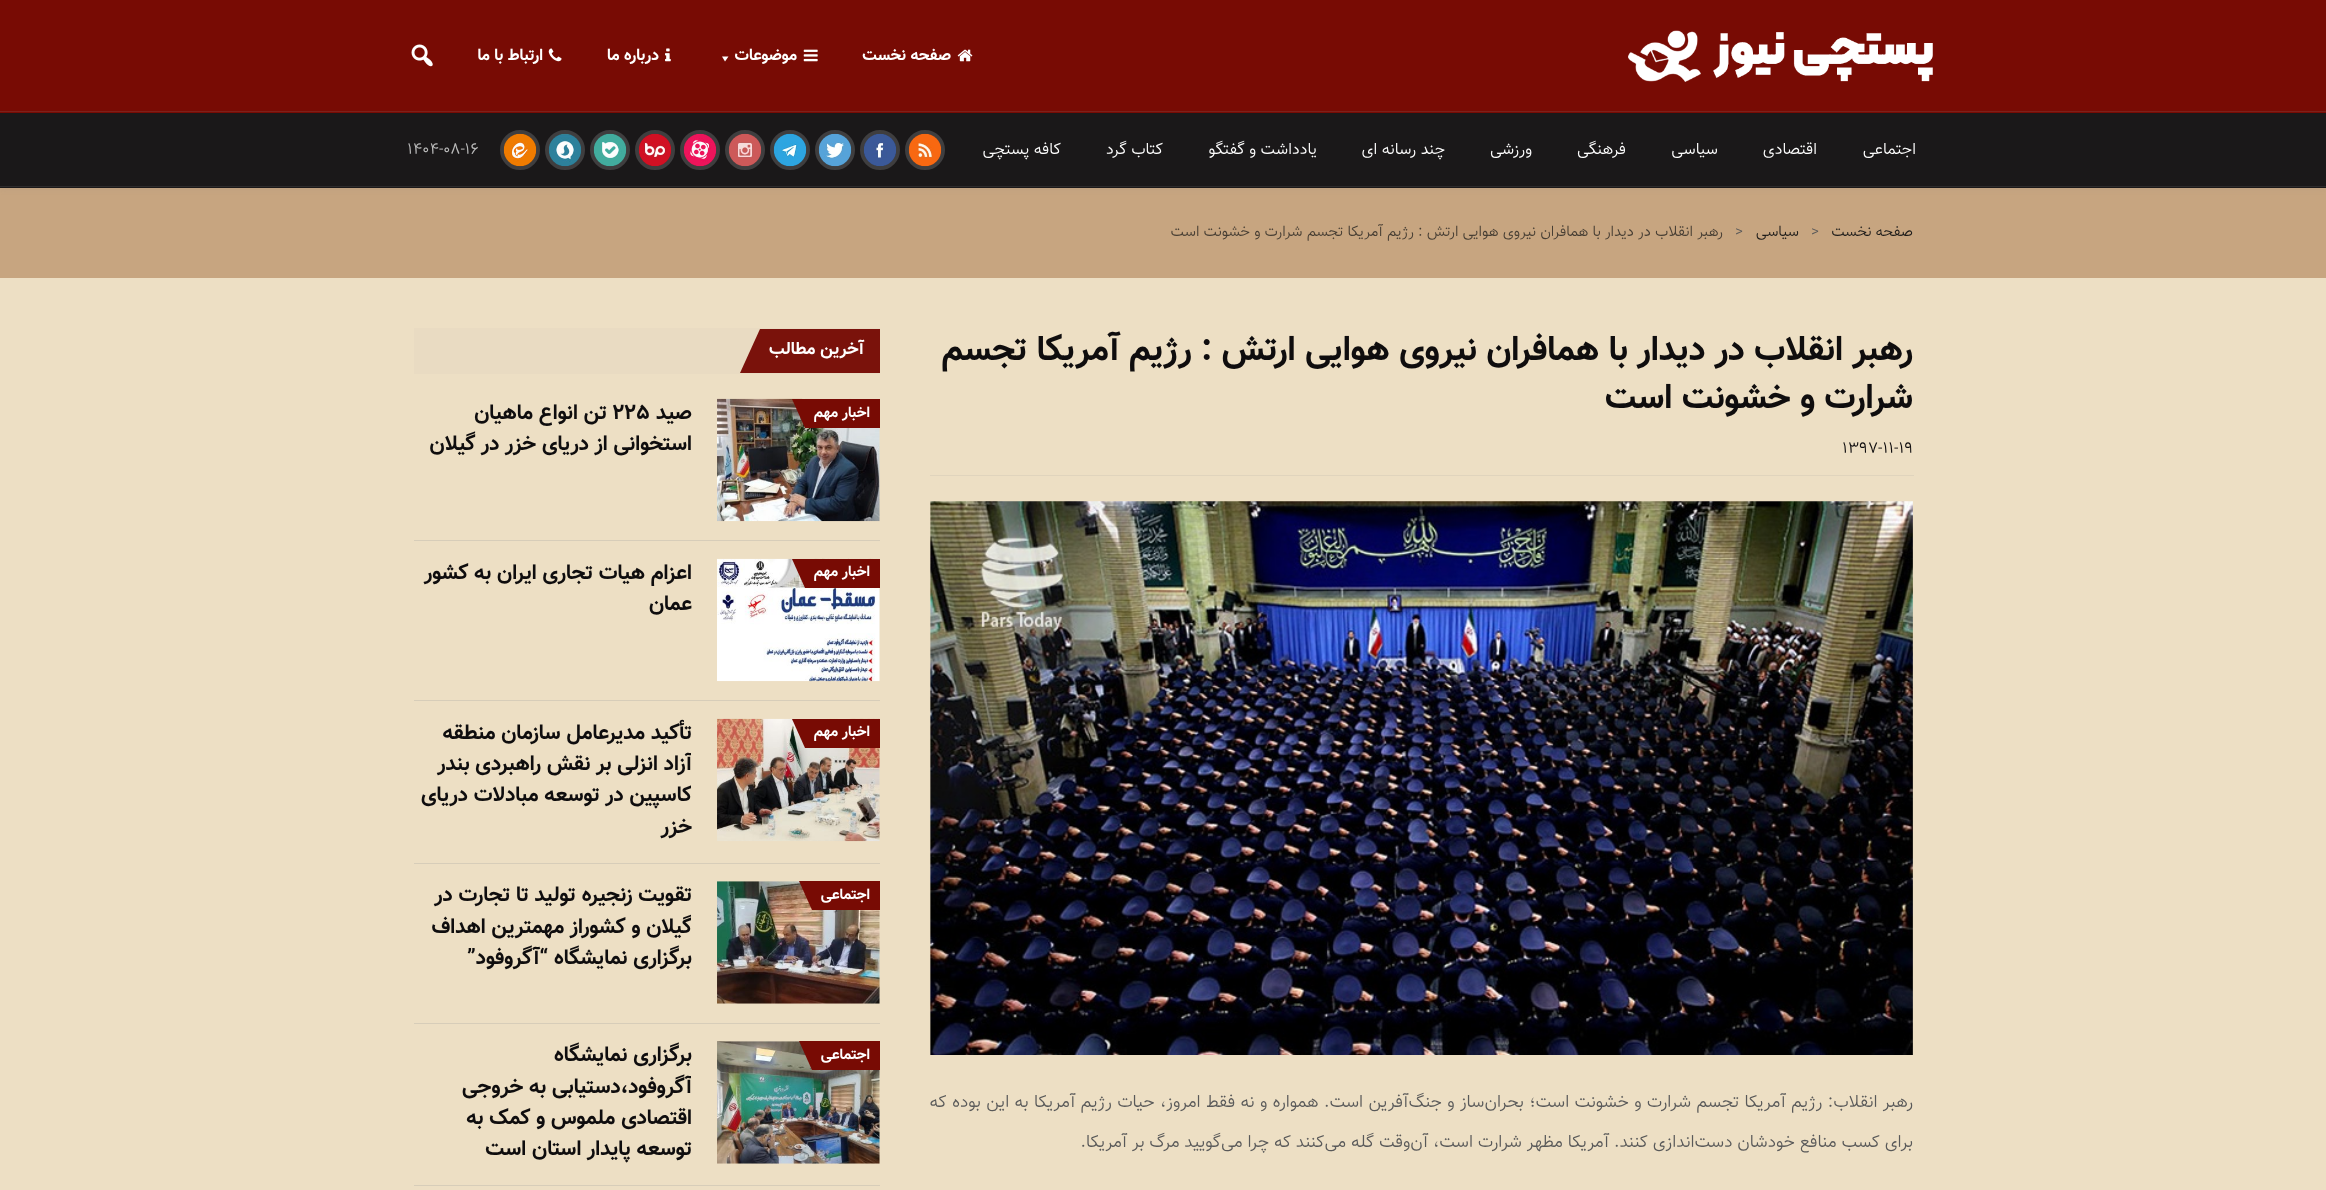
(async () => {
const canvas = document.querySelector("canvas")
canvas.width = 2326
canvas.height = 1190
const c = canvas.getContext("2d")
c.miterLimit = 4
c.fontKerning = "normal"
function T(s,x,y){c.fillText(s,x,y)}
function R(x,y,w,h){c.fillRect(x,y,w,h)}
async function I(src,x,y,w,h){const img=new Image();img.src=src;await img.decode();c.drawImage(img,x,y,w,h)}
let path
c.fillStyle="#c7a580"
R(0,0,2326,1190)
c.fillStyle="#80808033"
c.filter="blur(3px)"
c.beginPath()
c.rect(0,0,2326,188)
c.fill()
c.filter="none"
c.fillStyle="#780b04"
R(0,0,2326,113)
c.fillStyle="#7d201a"
R(0,111,2326,1)
await I("1.png",1628,30,305,52)
await I("2.png",957,49,16,13)
c.direction="rtl"
c.font="bold 16.25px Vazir"
c.fillStyle="#fff"
T("صفحه نخست",951,60)
await I("3.png",803,49,15,13)
T("موضوعات",797,60)
path = new Path2D("M728.5 56.5l-3.5 5l-3-5z")
c.fill(path)
await I("4.png",665,48,6,14)
T("درباره ما",659,60)
await I("5.png",548,48,14,14)
T("ارتباط با ما",543,60)
await I("6.png",411,44,22,23)
c.fillStyle="#1a1819"
R(0,113,2326,75)
c.fillStyle="#2d2b2c"
R(0,186,2326,1)
c.font="300 16.25px Vazir"
c.fillStyle="#fff"
T("اجتماعی",1916,154)
T("اقتصادی",1817,154)
T("سیاسی",1718,154)
T("فرهنگی",1626,154)
T("ورزشی",1532,154)
T("چند رسانه ای",1445,154)
T("یادداشت و گفتگو",1317,154)
T("کتاب گرد",1163,154)
T("کافه پستچی",1061,154)
c.beginPath()
c.arc(925,150,18,0,7)
c.strokeStyle="#3f3e3f"
c.lineWidth=4
c.stroke()
await I("7.png",908,133,34,34)
c.beginPath()
c.arc(880,150,18,0,7)
c.stroke()
await I("8.png",863,133,34,34)
c.beginPath()
c.arc(835,150,18,0,7)
c.stroke()
await I("9.png",818,133,34,34)
c.beginPath()
c.arc(790,150,18,0,7)
c.stroke()
await I("10.png",773,133,34,34)
c.beginPath()
c.arc(745,150,18,0,7)
c.stroke()
await I("11.png",728,133,34,34)
c.beginPath()
c.arc(700,150,18,0,7)
c.stroke()
await I("12.png",683,133,34,34)
c.beginPath()
c.arc(655,150,18,0,7)
c.stroke()
await I("13.png",638,133,34,34)
c.beginPath()
c.arc(610,150,18,0,7)
c.stroke()
await I("14.png",593,133,34,34)
c.beginPath()
c.arc(565,150,18,0,7)
c.stroke()
await I("15.png",548,133,34,34)
c.beginPath()
c.arc(520,150,18,0,7)
c.stroke()
await I("16.png",503,133,34,34)
c.direction="ltr"
c.fillStyle="#bababa"
T("۱۴۰۴-۰۸-۱۶",407,154)
c.direction="rtl"
c.font="300 15px Vazir"
c.fillStyle="#1c1b19"
T("صفحه نخست",1913,236)
c.direction="ltr"
c.fillStyle="#595959"
T(">",1811,236)
c.direction="rtl"
c.fillStyle="#1c1b19"
T("سیاسی",1799,236)
c.direction="ltr"
c.fillStyle="#595959"
T(">",1735,236)
c.direction="rtl"
c.fillStyle="#473e33"
T("رهبر انقلاب در دیدار با همافران نیروی هوایی ارتش : رژیم آمریکا تجسم شرارت و خشونت است",1723,236)
c.fillStyle="#eddfc4"
R(0,278,2326,912)
c.fillStyle="#e9dbc2"
R(414,328,466,46)
c.fillStyle="#e0d4bd"
R(930,475,984,1)
c.font="bold 35px Vazir"
c.fillStyle="#0f0d0e"
T("رهبر انقلاب در دیدار با همافران نیروی هوایی ارتش : رژیم آمریکا تجسم",1913,360)
T("شرارت و خشونت است",1913,408)
c.direction="ltr"
c.font="300 16.25px Vazir"
T("۱۳۹۷-۱۱-۱۹",1842,453)
await I("17.png",930,501,983,554)
c.wordSpacing="0.5px"
c.direction="rtl"
c.font="300 17.5px Vazir"
c.fillStyle="#595959"
T("رهبر انقلاب: رژیم آمریکا تجسم شرارت و خشونت است؛ بحران‌ساز و جنگ‌آفرین است. همواره و نه‌ فقط امروز، حیات رژیم آمریکا به این بوده که",1913,1107)
c.wordSpacing="0px"
T("برای کسب منافع خودشان دست‌اندازی کنند. آمریکا مظهر شرارت است، آن‌وقت گله می‌کنند که چرا می‌گویید مرگ بر آمریکا.",1913,1147)
c.save()
c.beginPath()
c.rect(414,328,466,46)
c.clip()
c.fillStyle="#7a120b"
path = new Path2D("M760 329h141l-20 44h-141z")
c.fill(path)
c.restore()
c.font="bold 17.5px Vazir"
c.fillStyle="#fff"
T("آخرین مطالب",864,354)
await I("18.png",717,398,163,124)
c.fillStyle="#780b04"
path = new Path2D("M792 399h72l14 29h-73z")
c.fill(path)
R(864,399,16,29)
c.font="bold 15px Vazir"
c.fillStyle="#fff"
T("اخبار مهم",870,417)
c.font="bold 21.25px Vazir"
c.fillStyle="#0f0d0e"
T("صید",692,419)
c.direction="ltr"
T("۲۲۵",612,419)
c.direction="rtl"
T("تن انواع ماهیان",607,419)
T("استخوانی از دریای خزر در گیلان",692,450)
c.fillStyle="#d7cdb9"
R(414,540,466,1)
await I("19.png",717,558,163,124)
c.fillStyle="#780b04"
path = new Path2D("M792 559h72l14 29h-73z")
c.fill(path)
R(864,559,16,29)
c.font="bold 15px Vazir"
c.fillStyle="#fff"
T("اخبار مهم",870,576)
c.font="bold 21.25px Vazir"
c.fillStyle="#0f0d0e"
T("اعزام هیات تجاری ایران به کشور",692,579)
T("عمان",692,610)
c.fillStyle="#d7cdb9"
R(414,700,466,1)
await I("20.png",717,718,163,124)
c.fillStyle="#780b04"
path = new Path2D("M792 719h72l14 29h-73z")
c.fill(path)
R(864,719,16,29)
c.font="bold 15px Vazir"
c.fillStyle="#fff"
T("اخبار مهم",870,736)
c.font="bold 21.25px Vazir"
c.fillStyle="#0f0d0e"
T("تأکید مدیرعامل سازمان منطقه",692,739)
c.save()
c.beginPath()
c.rect(414,719,277,125)
c.clip()
T("آزاد انزلی بر نقش راهبردی بندر",692,770)
T("کاسپین در توسعه مبادلات دریای",692,801)
c.restore()
T("خزر",692,833)
c.fillStyle="#d7cdb9"
R(414,863,466,1)
await I("21.png",717,881,163,123)
c.fillStyle="#780b04"
path = new Path2D("M799 881h65l14 29h-66z")
c.fill(path)
R(864,881,16,29)
c.font="bold 15px Vazir"
c.fillStyle="#fff"
T("اجتماعی",870,899)
c.font="bold 21.25px Vazir"
c.fillStyle="#0f0d0e"
T("تقویت زنجیره تولید تا تجارت در",692,901)
c.save()
c.beginPath()
c.rect(414,881,277,94)
c.clip()
T("گیلان و کشوراز مهمترین اهداف",692,933)
c.restore()
T("برگزاری نمایشگاه “آگروفود”",692,964)
c.fillStyle="#d7cdb9"
R(414,1023,466,1)
await I("22.png",717,1041,163,123)
c.fillStyle="#780b04"
path = new Path2D("M799 1041h65l14 29h-66z")
c.fill(path)
R(864,1041,16,29)
c.font="bold 15px Vazir"
c.fillStyle="#fff"
T("اجتماعی",870,1059)
c.font="bold 21.25px Vazir"
c.fillStyle="#0f0d0e"
T("برگزاری نمایشگاه",692,1061)
c.save()
c.beginPath()
c.rect(414,1041,277,125)
c.clip()
T("آگروفود،دستیابی به خروجی",692,1093)
c.restore()
T("اقتصادی ملموس و کمک به",692,1124)
T("توسعه پایدار استان است",692,1155)
c.fillStyle="#d7cdb9"
R(414,1185,466,1)
})()
